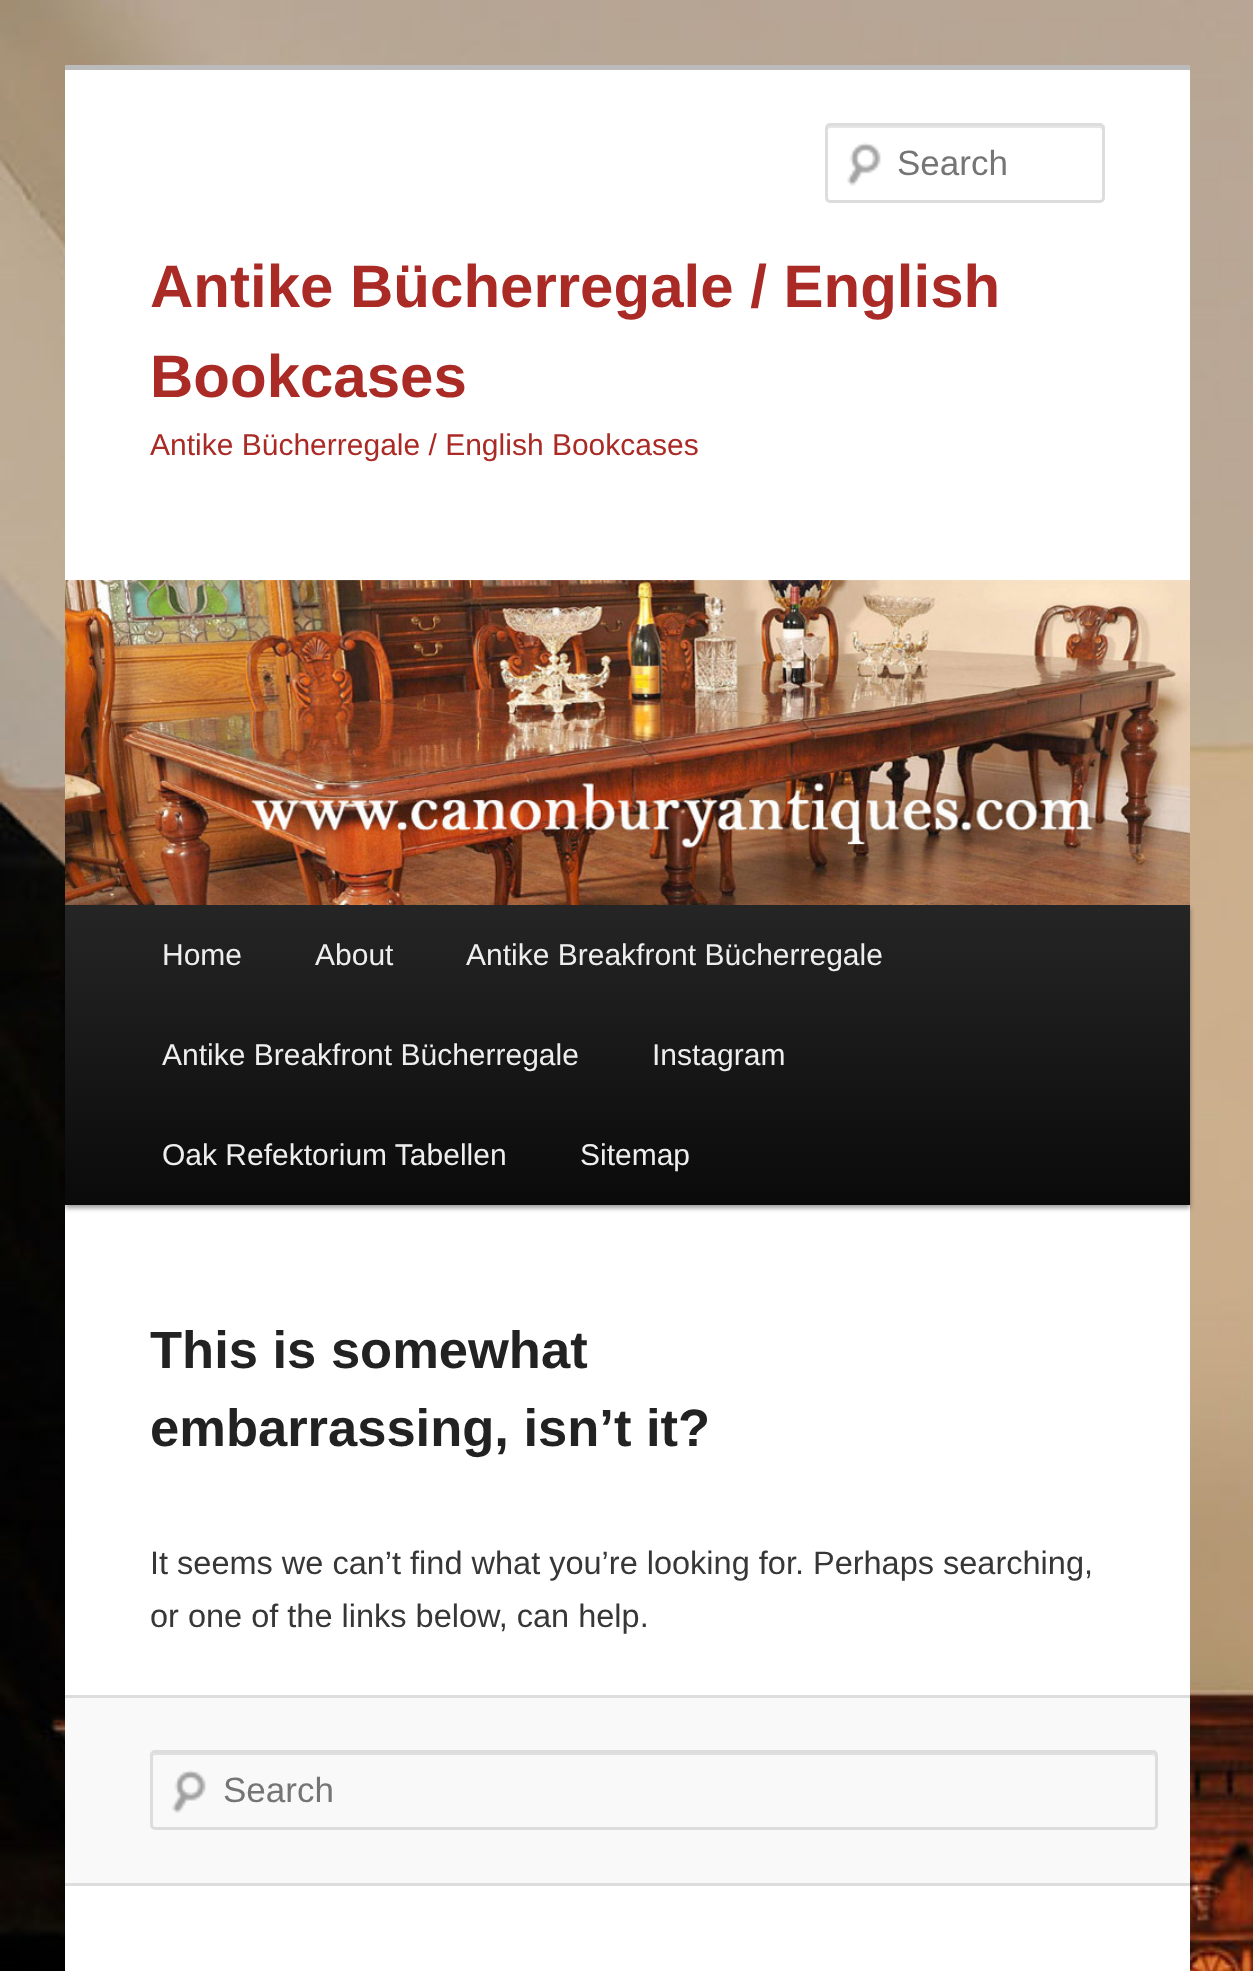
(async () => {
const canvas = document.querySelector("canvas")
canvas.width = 1253
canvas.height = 1971
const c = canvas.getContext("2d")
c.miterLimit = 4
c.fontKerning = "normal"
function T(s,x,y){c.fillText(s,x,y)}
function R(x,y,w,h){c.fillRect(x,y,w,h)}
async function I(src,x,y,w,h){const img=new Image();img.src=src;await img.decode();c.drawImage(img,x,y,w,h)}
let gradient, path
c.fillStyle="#fff"
R(0,0,1253,1971)
await I("1.png",0,0,1253,1971)
R(65,70,1125,1901)
c.fillStyle="#bbb"
R(65,65,1125,5)
await I("2.png",847,142,34,44)
c.fillStyle="#e6e6e6"
path = new Path2D("M830 128h270c1 0 2 1 2 2v70c1-1 1-2 1-2v-70c0-2-1-3-3-3h-270c-1 0-2 1-2 3v2c0-1 1-2 2-2z")
c.fill(path)
c.beginPath()
c.roundRect(826.5,124.5,277,77,3.5)
c.strokeStyle="#ddd"
c.lineWidth=3
c.stroke()
c.font="35px Liberation Sans"
c.fillStyle="#757575"
T("Search",897,175)
c.font="bold 60px Liberation Sans"
c.fillStyle="#aa2a25"
T("Antike Bücherregale / English",150,307)
T("Bookcases",150,397)
c.font="30px Liberation Sans"
T("Antike Bücherregale / English Bookcases",150,455)
c.fillStyle="#00000066"
c.filter="blur(2.5px)"
c.beginPath()
c.rect(65,908,1125,300)
c.fill()
c.filter="none"
await I("3.png",65,580,1125,325)
gradient = c.createLinearGradient(628,905,628,1205)
gradient.addColorStop(0,"#252525")
gradient.addColorStop(1,"#0a0a0a")
c.fillStyle = gradient
R(65,905,1125,300)
c.fillStyle="#eee"
T("Home",162,965)
T("About",315,965)
T("Antike Breakfront Bücherregale",466,965)
T("Antike Breakfront Bücherregale",162,1065)
T("Instagram",652,1065)
T("Oak Refektorium Tabellen",162,1165)
T("Sitemap",580,1165)
c.font="bold 52.5px Liberation Sans"
c.fillStyle="#222"
T("This is somewhat",150,1368)
T("embarrassing, isn’t it?",150,1446)
c.font="32.5px Liberation Sans"
c.fillStyle="#373737"
T("It seems we can’t find what you’re looking for. Perhaps searching,",150,1574)
T("or one of the links below, can help.",150,1627)
c.fillStyle="#f9f9f9"
R(65,1698,1125,185)
c.fillStyle="#ddd"
R(65,1695,1125,3)
R(65,1883,1125,3)
await I("4.png",172,1770,34,43)
c.fillStyle="#e0e0e0"
path = new Path2D("M155 1755h997c2 0 3 1 3 3v-2c0-2-1-3-3-3h-996c-2 0-3 1-3 3z")
c.fill(path)
c.beginPath()
c.roundRect(151.5,1751.5,1005,77,3.5)
c.stroke()
c.font="35px Liberation Sans"
c.fillStyle="#757575"
T("Search",223,1802)
})()
